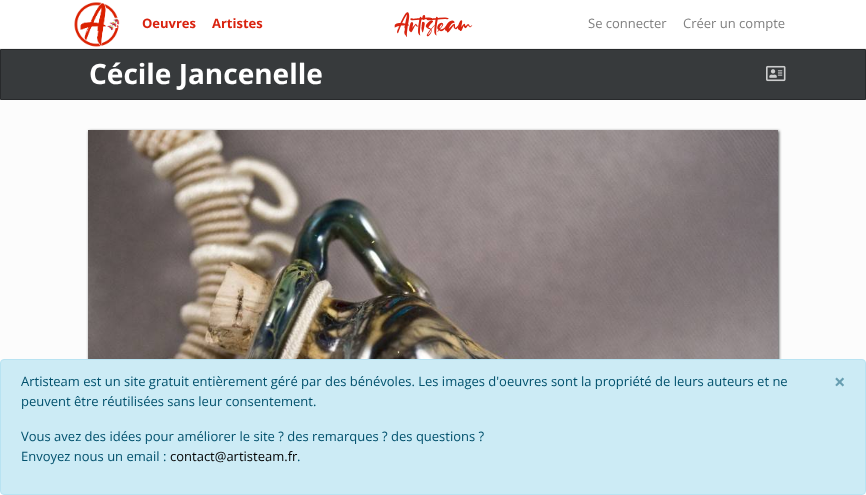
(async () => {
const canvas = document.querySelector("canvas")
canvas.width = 866
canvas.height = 495
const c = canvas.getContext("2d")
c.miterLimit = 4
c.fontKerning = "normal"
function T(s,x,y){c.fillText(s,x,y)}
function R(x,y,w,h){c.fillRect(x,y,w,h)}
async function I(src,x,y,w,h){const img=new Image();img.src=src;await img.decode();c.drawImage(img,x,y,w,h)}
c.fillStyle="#fcfcfc"
R(0,0,866,495)
c.fillStyle="#fff"
R(0,0,866,48)
c.fillStyle="#eee"
R(0,48,866,1)
await I("1.png",74,2,46,45)
c.font="30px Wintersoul"
c.fillStyle="#d9230f"
T("Artisteam",394,33)
c.font="bold 13px Open Sans"
T("Oeuvres",142,28)
T("Artistes",212,28)
c.font="13px Open Sans"
c.fillStyle="#808080"
T("Se connecter",588,28)
T("Créer un compte",683,28)
c.fillStyle="#373a3c"
c.beginPath()
c.rect(.5,49.5,865,50)
c.fill()
c.strokeStyle="#27292b"
c.stroke()
c.font="bold 28px Open Sans"
c.fillStyle="#fff"
T("Cécile Jancenelle",89,84)
await I("2.png",766,65,20,17)
R(0,491,866,4)
c.fillStyle="#000000b8"
c.filter="blur(1.5px)"
c.beginPath()
c.rect(89,131,690,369)
c.fill()
c.filter="none"
await I("3.png",88,130,690,229)
c.fillStyle="#ccebf5"
c.beginPath()
c.roundRect(.5,359.5,865,135,3.5)
c.fill()
c.strokeStyle="#b8e3f2"
c.stroke()
c.font="13px Open Sans"
c.fillStyle="#01506c"
T("Artisteam est un site gratuit entièrement géré par des bénévoles. Les images d'oeuvres sont la propriété de leurs auteurs et ne",21,386)
T("peuvent être réutilisées sans leur consentement.",21,406)
c.font="bold 20px Open Sans"
c.fillStyle="#679eb1"
T("×",834,389)
c.font="13px Open Sans"
c.fillStyle="#01506c"
T("Vous avez des idées pour améliorer le site ? des remarques ? des questions ?",21,441)
T("Envoyez nous un email :",21,461)
c.fillStyle="#000"
T("contact@artisteam.fr",170,461)
c.fillStyle="#01506c"
T(".",297,461)
})()
